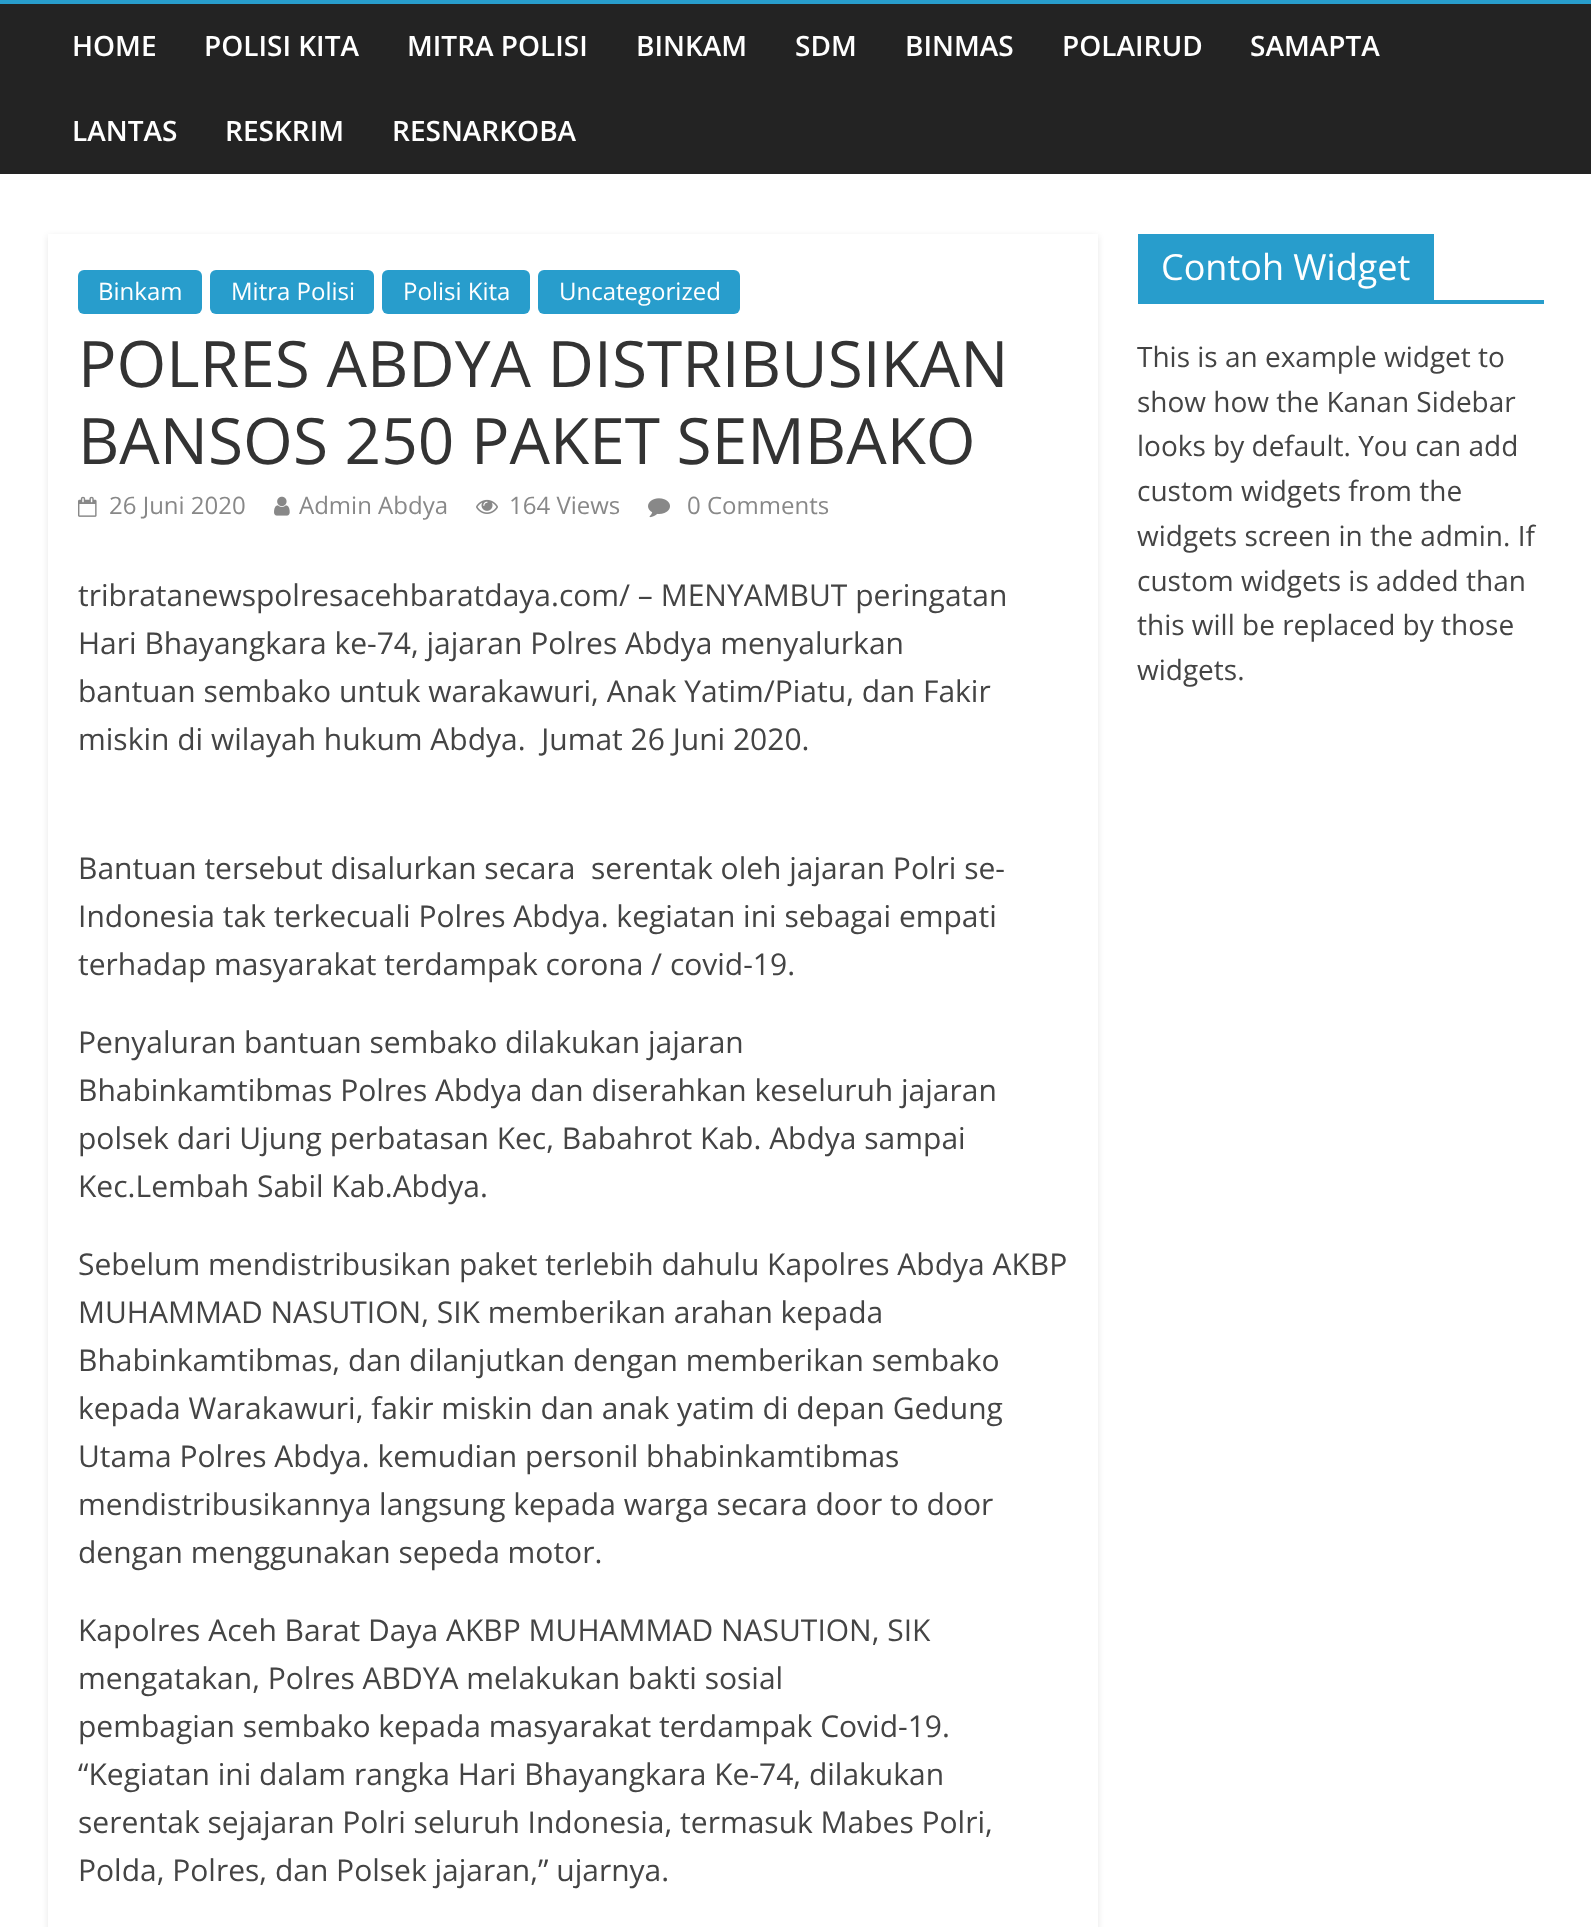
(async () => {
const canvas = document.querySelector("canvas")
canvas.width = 1591
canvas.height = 1927
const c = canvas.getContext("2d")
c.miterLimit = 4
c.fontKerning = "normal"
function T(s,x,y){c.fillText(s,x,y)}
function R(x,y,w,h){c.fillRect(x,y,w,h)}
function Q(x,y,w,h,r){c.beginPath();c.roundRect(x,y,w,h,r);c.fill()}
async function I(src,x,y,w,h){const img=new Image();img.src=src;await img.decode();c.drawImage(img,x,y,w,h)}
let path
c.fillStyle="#fff"
R(0,0,1591,1927)
c.fillStyle="#232323"
R(0,4,1591,170)
c.fillStyle="#289dcc"
R(0,0,1591,4)
c.font="600 28px Open Sans"
c.fillStyle="#fff"
T("HOME",72,56)
T("POLISI KITA",204,56)
T("MITRA POLISI",407,56)
T("BINKAM",636,56)
T("SDM",795,56)
T("BINMAS",905,56)
T("POLAIRUD",1062,56)
T("SAMAPTA",1250,56)
T("LANTAS",72,141)
T("RESKRIM",225,141)
T("RESNARKOBA",392,141)
c.save()
path = new Path2D("M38 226h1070v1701h-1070zm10 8h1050v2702h-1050z")
c.clip(path,"evenodd")
c.fillStyle="#0000001a"
c.filter="blur(3px)"
c.beginPath()
c.rect(48,236,1050,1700)
c.fill()
c.filter="none"
c.restore()
c.fillStyle="#289dcc"
Q(78,270,124,44,6)
c.font="24px Open Sans"
c.fillStyle="#fff"
T("Binkam",98,300)
c.fillStyle="#289dcc"
Q(210,270,164,44,6)
c.fillStyle="#fff"
T("Mitra Polisi",231,300)
c.fillStyle="#289dcc"
Q(382,270,148,44,6)
c.fillStyle="#fff"
T("Polisi Kita",403,300)
c.fillStyle="#289dcc"
Q(538,270,202,44,6)
c.fillStyle="#fff"
T("Uncategorized",559,300)
c.font="64px Open Sans"
c.fillStyle="#333"
T("POLRES ABDYA DISTRIBUSIKAN",78,387)
T("BANSOS 250 PAKET SEMBAKO",78,464)
await I("1.png",78,496,19,21)
c.font="24px Open Sans"
c.fillStyle="#888"
T("26 Juni 2020",109,514)
await I("2.png",274,496,16,20)
T("Admin Abdya",299,514)
await I("3.png",476,499,22,15)
T("164 Views",509,514)
await I("4.png",648,498,22,20)
T("0 Comments",687,514)
c.font="30px Open Sans"
c.fillStyle="#444"
T("tribratanewspolresacehbaratdaya.com/ – MENYAMBUT peringatan",78,606)
T("Hari Bhayangkara ke-74, jajaran Polres Abdya menyalurkan",78,654)
T("bantuan sembako untuk warakawuri, Anak Yatim/Piatu, dan Fakir",78,702)
T("miskin di wilayah hukum Abdya.  Jumat 26 Juni 2020.",78,750)
T("Bantuan tersebut disalurkan secara  serentak oleh jajaran Polri se-",78,879)
T("Indonesia tak terkecuali Polres Abdya. kegiatan ini sebagai empati",78,927)
T("terhadap masyarakat terdampak corona / covid-19.",78,975)
T("Penyaluran bantuan sembako dilakukan jajaran",78,1053)
T("Bhabinkamtibmas Polres Abdya dan diserahkan keseluruh jajaran",78,1101)
T("polsek dari Ujung perbatasan Kec, Babahrot Kab. Abdya sampai",78,1149)
T("Kec.Lembah Sabil Kab.Abdya.",78,1197)
T("Sebelum mendistribusikan paket terlebih dahulu Kapolres Abdya AKBP",78,1275)
T("MUHAMMAD NASUTION, SIK memberikan arahan kepada",78,1323)
T("Bhabinkamtibmas, dan dilanjutkan dengan memberikan sembako",78,1371)
T("kepada Warakawuri, fakir miskin dan anak yatim di depan Gedung",78,1419)
T("Utama Polres Abdya. kemudian personil bhabinkamtibmas",78,1467)
T("mendistribusikannya langsung kepada warga secara door to door",78,1515)
T("dengan menggunakan sepeda motor.",78,1563)
T("Kapolres Aceh Barat Daya AKBP MUHAMMAD NASUTION, SIK",78,1641)
T("mengatakan, Polres ABDYA melakukan bakti sosial",78,1689)
T("pembagian sembako kepada masyarakat terdampak Covid-19.",78,1737)
T("“Kegiatan ini dalam rangka Hari Bhayangkara Ke-74, dilakukan",78,1785)
T("serentak sejajaran Polri seluruh Indonesia, termasuk Mabes Polri,",78,1833)
T("Polda, Polres, dan Polsek jajaran,” ujarnya.",78,1881)
c.fillStyle="#289dcc"
R(1138,300,406,4)
R(1138,234,296,66)
c.font="36px Open Sans"
c.fillStyle="#fff"
T("Contoh Widget",1161,280)
c.font="28px Open Sans"
c.fillStyle="#444"
T("This is an example widget to",1137,367)
T("show how the Kanan Sidebar",1137,412)
T("looks by default. You can add",1137,456)
T("custom widgets from the",1137,501)
T("widgets screen in the admin. If",1137,546)
T("custom widgets is added than",1137,591)
T("this will be replaced by those",1137,635)
T("widgets.",1137,680)
})()
